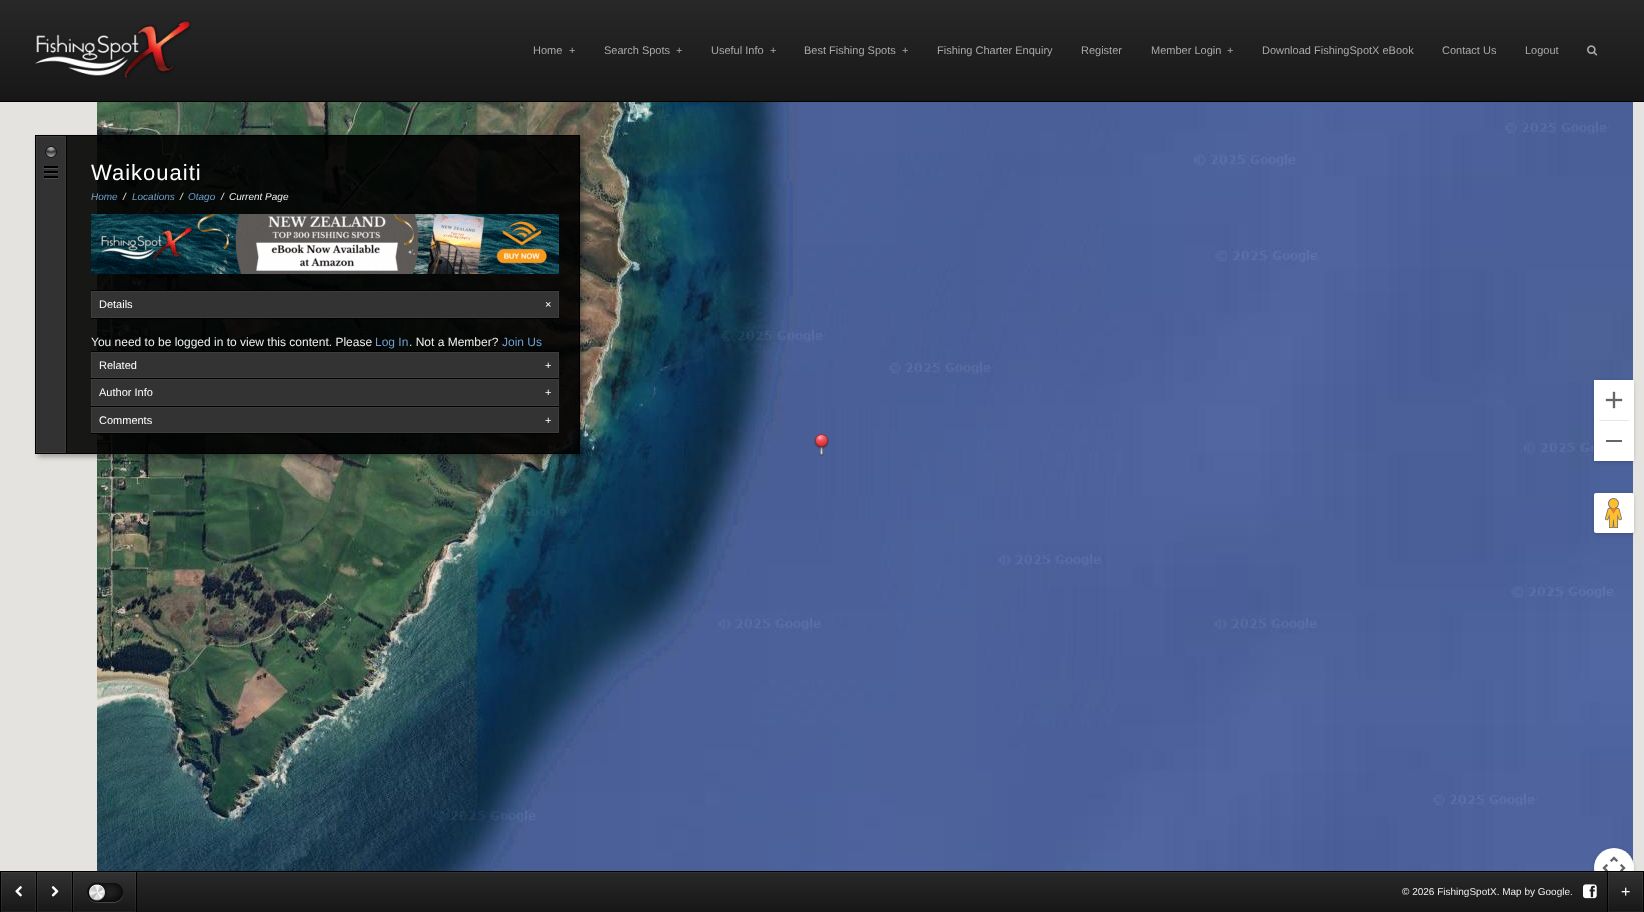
(async () => {
const canvas = document.querySelector("canvas")
canvas.width = 1644
canvas.height = 912
const c = canvas.getContext("2d")
c.miterLimit = 4
c.fontKerning = "normal"
function T(s,x,y){c.fillText(s,x,y)}
function R(x,y,w,h){c.fillRect(x,y,w,h)}
function Q(x,y,w,h,r){c.beginPath();c.roundRect(x,y,w,h,r);c.fill()}
async function I(src,x,y,w,h){const img=new Image();img.src=src;await img.decode();c.drawImage(img,x,y,w,h)}
let gradient, path
c.fillStyle="#e5e3df"
R(0,0,1644,912)
gradient = c.createLinearGradient(0,0,0,101)
gradient.addColorStop(0,"#282828")
gradient.addColorStop(1,"#171717")
c.fillStyle = gradient
R(0,0,1644,101)
c.fillStyle="#000"
R(0,101,1644,1)
await I("1.png",35,20,156,59)
c.font="11px Liberation Sans"
c.fillStyle="#aaa"
T("Home",533,54)
T("+",569,54)
T("Search Spots",604,54)
T("+",676,54)
T("Useful Info",711,54)
T("+",770,54)
T("Best Fishing Spots",804,54)
T("+",902,54)
T("Fishing Charter Enquiry",937,54)
T("Register",1081,54)
T("Member Login",1151,54)
T("+",1227,54)
T("Download FishingSpotX eBook",1262,54)
T("Contact Us",1442,54)
T("Logout",1525,54)
await I("2.png",1587,45,11,11)
await I("3.png",97,102,256,112)
await I("4.png",353,102,256,114)
await I("5.png",609,102,256,114)
await I("6.png",865,102,256,114)
await I("7.png",1121,102,256,114)
await I("8.png",1377,102,256,114)
await I("9.png",97,274,256,198)
await I("10.png",353,216,256,256)
await I("11.png",609,216,256,256)
await I("12.png",865,216,256,256)
await I("13.png",1121,216,256,256)
await I("14.png",1377,216,256,256)
await I("15.png",97,472,256,256)
await I("16.png",353,472,256,256)
await I("17.png",609,472,256,256)
await I("18.png",865,472,256,256)
await I("19.png",1121,472,256,256)
await I("20.png",1377,472,256,256)
await I("21.png",97,728,256,143)
await I("22.png",353,728,256,143)
await I("23.png",609,728,256,143)
await I("24.png",865,728,256,143)
await I("25.png",1121,728,256,143)
await I("26.png",1377,728,256,143)
await I("27.png",814,434,15,22)
c.fillStyle="#0000004d"
c.filter="blur(2px)"
c.beginPath()
c.roundRect(1595,382,38,79,1)
c.fill()
c.filter="none"
c.fillStyle="#fff"
R(1594,380,40,81)
await I("28.png",1605,391,18,18)
c.fillStyle="#e6e6e6"
R(1599,420,30,1)
c.fillStyle="#666"
R(1606,440,16,2)
c.fillStyle="#0000004d"
c.filter="blur(2px)"
c.beginPath()
c.roundRect(1595,495,38,38,1)
c.fill()
c.filter="none"
c.fillStyle="#fff"
Q(1594,493,40,40,2)
await I("29.png",1605,498,17,30)
c.fillStyle="#0000004d"
c.filter="blur(2px)"
c.beginPath()
c.roundRect(1595,850,38,38,19)
c.fill()
c.filter="none"
c.fillStyle="#fff"
c.beginPath()
c.arc(1614,868,20,0,7)
c.fill()
await I("30.png",1602,856,24,15)
c.save()
path = new Path2D("M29 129h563v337h-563zm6 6h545v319h-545z")
c.clip(path,"evenodd")
c.fillStyle="#0000004d"
c.filter="blur(2.5px)"
c.beginPath()
c.rect(38,138,545,319)
c.fill()
c.filter="none"
c.restore()
c.fillStyle="#000000e6"
R(67,136,512,317)
c.strokeStyle="#000"
c.strokeRect(35.5,135.5,544,318)
c.fillStyle="#323232"
R(37,137,28,315)
await I("31.png",43,166,16,13)
c.fillStyle="#000"
R(66,136,1,317)
c.strokeStyle="#3c3c3c"
c.strokeRect(36.5,136.5,29,316)
await I("32.png",45,146,12,12)
c.letterSpacing="1px"
c.font="22px Liberation Sans"
c.fillStyle="#fff"
T("Waikouaiti",91,180)
c.letterSpacing="0px"
c.font="italic 10px Liberation Sans"
c.fillStyle="#709fcc"
T("Home",91,200)
c.fillStyle="#eee"
T("/",123,200)
c.fillStyle="#709fcc"
T("Locations",132,200)
c.fillStyle="#eee"
T("/",180,200)
c.fillStyle="#709fcc"
T("Otago",188,200)
c.fillStyle="#eee"
T("/",221,200)
T("Current Page",229,200)
await I("33.png",91,214,468,60)
c.fillStyle="#333"
R(92,292,466,25)
c.fillStyle="#000"
R(91,290,468,1)
R(91,318,468,1)
c.strokeStyle="#3d3d3d"
c.strokeRect(91.5,291.5,467,26)
c.font="11px Liberation Sans"
c.fillStyle="#fff"
T("Details",99,308)
T("×",545,308)
c.font="12px Liberation Sans"
c.fillStyle="#eee"
T("You need to be logged in to view this content. Please",91,346)
c.fillStyle="#709fcc"
T("Log In",375,346)
c.fillStyle="#eee"
T(". Not a Member?",409,346)
c.fillStyle="#709fcc"
T("Join Us",502,346)
c.fillStyle="#333"
R(92,353,466,24)
c.fillStyle="#000"
R(91,351,468,1)
R(91,378,468,1)
c.strokeRect(91.5,352.5,467,25)
c.font="11px Liberation Sans"
c.fillStyle="#fff"
T("Related",99,369)
T("+",545,369)
c.fillStyle="#333"
R(92,380,466,25)
c.fillStyle="#000"
R(91,406,468,1)
c.strokeRect(91.5,379.5,467,26)
c.fillStyle="#fff"
T("Author Info",99,396)
T("+",545,396)
c.fillStyle="#333"
R(92,408,466,24)
c.fillStyle="#000"
R(91,433,468,1)
c.strokeRect(91.5,407.5,467,25)
c.fillStyle="#fff"
T("Comments",99,424)
T("+",545,424)
gradient = c.createLinearGradient(0,872,0,912)
gradient.addColorStop(0,"#282828")
gradient.addColorStop(1,"#171717")
c.fillStyle = gradient
R(137,873,1470,39)
c.fillStyle="#000"
R(0,871,1644,1)
gradient = c.createLinearGradient(1,872,1,912)
gradient.addColorStop(0,"#323232")
gradient.addColorStop(1,"#171717")
c.fillStyle = gradient
R(1,872,35,40)
c.fillStyle="#000"
R(36,872,1,40)
R(0,872,1,40)
await I("34.png",15,886,7,11)
c.strokeStyle="#ffffff0d"
c.strokeRect(1.5,872.5,34,39)
gradient = c.createLinearGradient(37,872,37,912)
gradient.addColorStop(0,"#323232")
gradient.addColorStop(1,"#171717")
c.fillStyle = gradient
R(37,872,35,40)
c.fillStyle="#000"
R(72,872,1,40)
await I("35.png",51,886,8,11)
c.strokeRect(37.5,872.5,34,39)
gradient = c.createLinearGradient(73,872,73,912)
gradient.addColorStop(0,"#323232")
gradient.addColorStop(1,"#171717")
c.fillStyle = gradient
R(73,872,63,40)
c.fillStyle="#000"
R(136,872,1,40)
c.strokeRect(73.5,872.5,62,39)
await I("36.png",87,882,36,21)
c.fillStyle="#333"
R(137,872,1470,1)
c.font="10px Liberation Sans"
c.fillStyle="#eee"
T("© 2026 FishingSpotX. Map by Google.",1402,895)
await I("37.png",1583,884,14,15)
gradient = c.createLinearGradient(1608,872,1608,912)
gradient.addColorStop(0,"#323232")
gradient.addColorStop(1,"#171717")
c.fillStyle = gradient
R(1608,872,35,40)
c.fillStyle="#000"
R(1643,872,1,40)
R(1607,872,1,40)
c.strokeRect(1608.5,872.5,34,39)
c.font="16px Liberation Sans"
c.fillStyle="#fff"
T("+",1621,897)
})()
